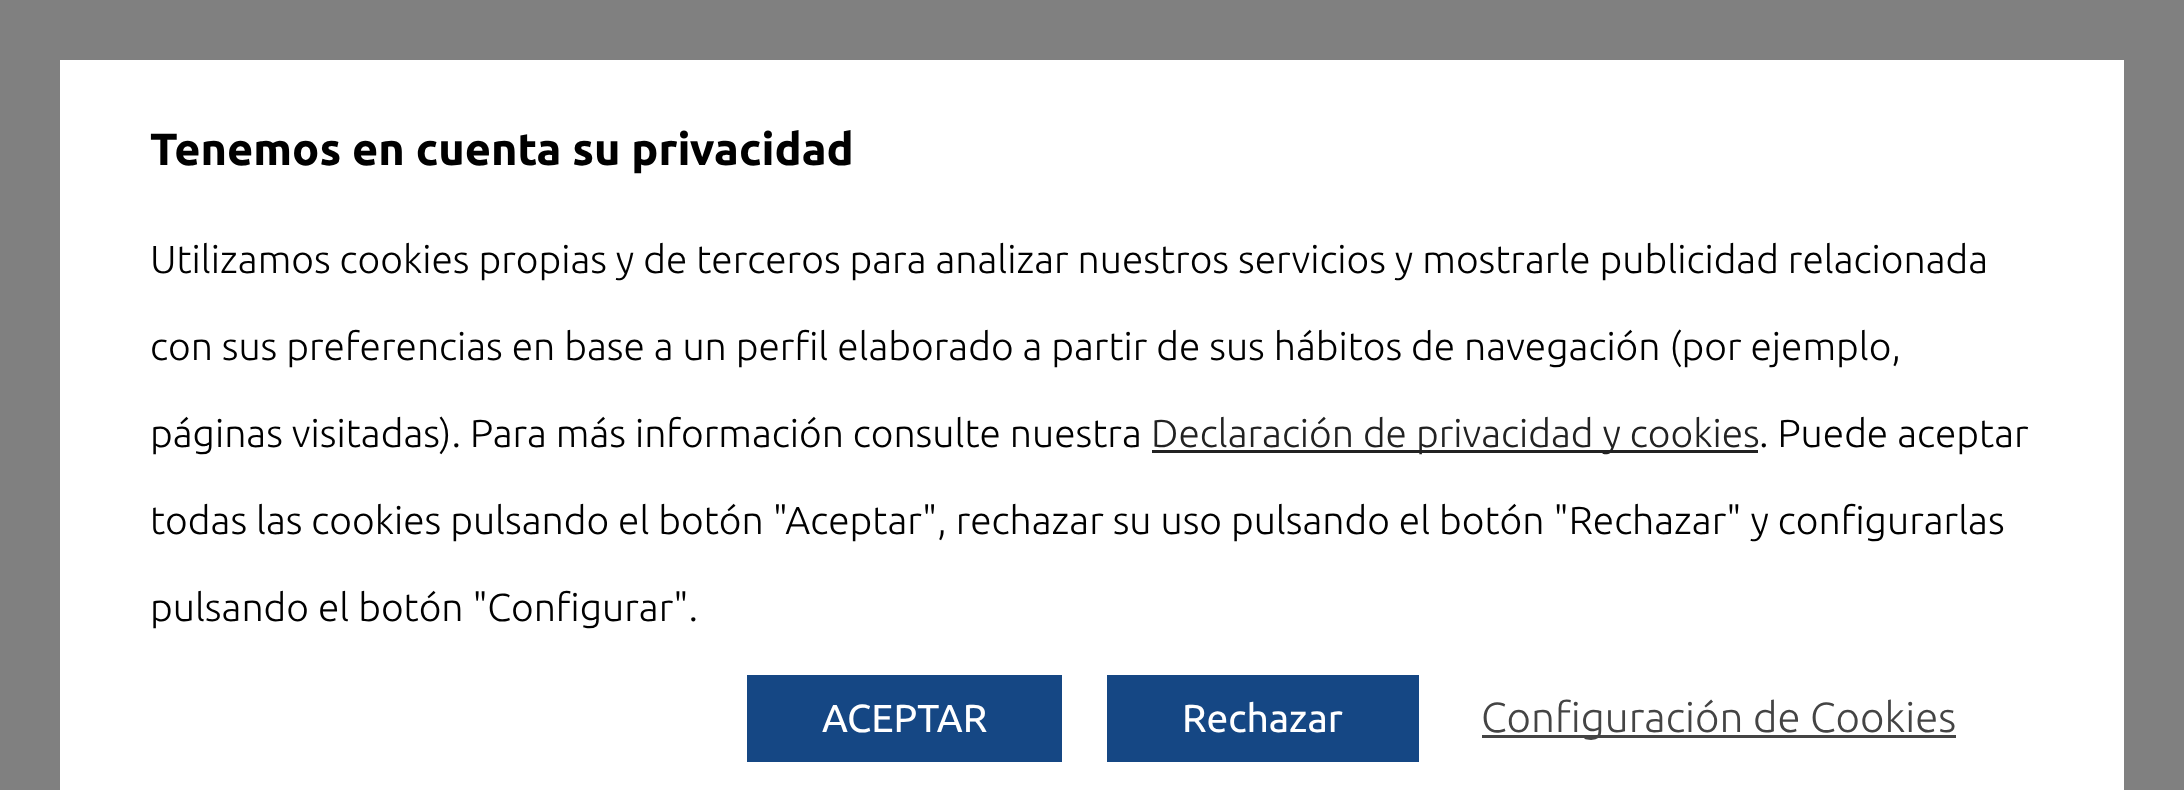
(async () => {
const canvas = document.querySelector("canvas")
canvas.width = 2184
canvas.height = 790
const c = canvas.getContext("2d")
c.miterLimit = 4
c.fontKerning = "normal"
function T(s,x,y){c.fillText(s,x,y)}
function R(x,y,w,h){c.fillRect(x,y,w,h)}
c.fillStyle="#fff"
R(0,0,2184,790)
c.strokeStyle="#808080"
c.lineWidth=60
c.strokeRect(30,30,2124,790)
c.font="bold 45px Ubuntu"
c.fillStyle="#000"
T("Tenemos en cuenta su privacidad",150,165)
c.font="300 39px Ubuntu"
T("Utilizamos cookies propias y de terceros para analizar nuestros servicios y mostrarle publicidad relacionada",150,273)
T("con sus preferencias en base a un perfil elaborado a partir de sus hábitos de navegación (por ejemplo,",150,360)
T("páginas visitadas). Para más información consulte nuestra",150,447)
c.fillStyle="#222"
R(1152,450,606,3)
T("Declaración de privacidad y cookies",1151,447)
c.fillStyle="#000"
T(". Puede aceptar",1759,447)
T("todas las cookies pulsando el botón \"Aceptar\", rechazar su uso pulsando el botón \"Rechazar\" y configurarlas",150,534)
T("pulsando el botón \"Configurar\".",150,621)
c.fillStyle="#154784"
R(747,675,315,87)
c.font="39px Ubuntu"
c.fillStyle="#fff"
T("ACEPTAR",822,732)
c.fillStyle="#154784"
R(1107,675,312,87)
c.fillStyle="#fff"
T("Rechazar",1182,732)
c.fillStyle="#444"
R(1482,735,474,3)
c.font="300 42px Ubuntu"
T("Configuración de Cookies",1481,732)
})()
